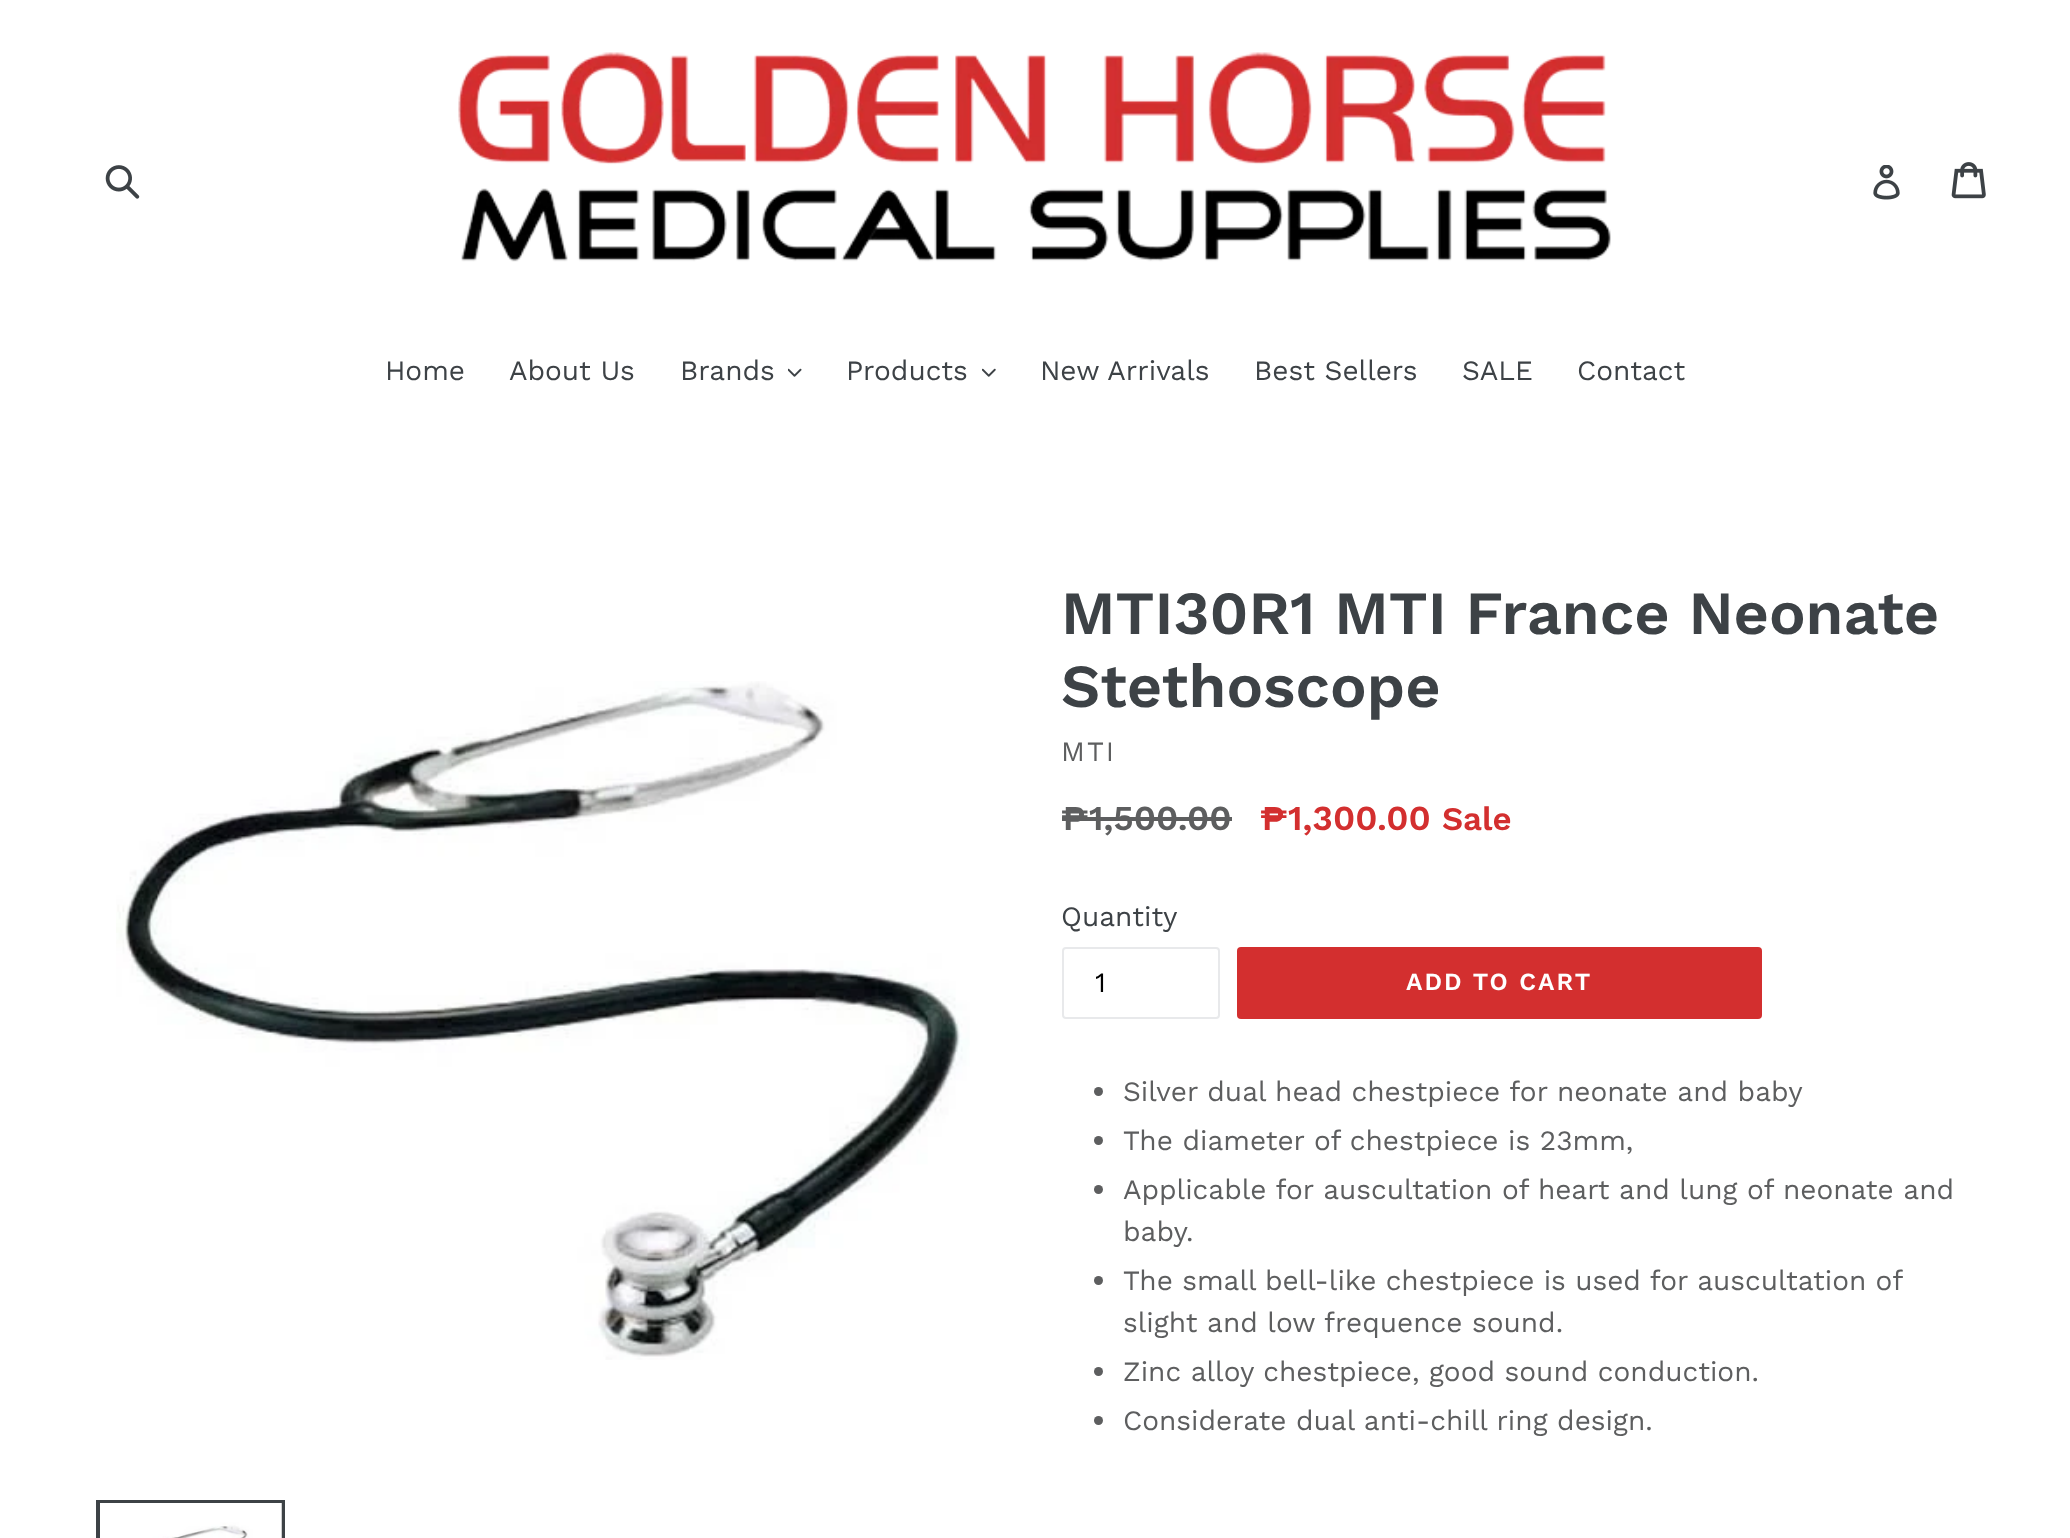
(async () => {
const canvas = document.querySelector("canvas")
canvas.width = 2070
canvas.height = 1538
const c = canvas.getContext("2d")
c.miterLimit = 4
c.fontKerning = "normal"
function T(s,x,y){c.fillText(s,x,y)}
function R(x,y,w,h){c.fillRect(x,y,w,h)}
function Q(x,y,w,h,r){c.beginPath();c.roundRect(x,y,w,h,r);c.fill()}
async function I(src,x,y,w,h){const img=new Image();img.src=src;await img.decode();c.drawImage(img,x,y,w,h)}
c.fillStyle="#fff"
R(0,0,2070,1538)
await I("1.png",105,165,35,34)
await I("2.png",458,52,1153,210)
await I("3.png",1873,165,27,35)
await I("4.png",1951,162,35,37)
c.font="28px Work Sans"
c.fillStyle="#3d4246"
T("Home",385,380)
T("About Us",509,380)
T("Brands",680,380)
await I("5.png",788,368,14,9)
T("Products",846,380)
await I("6.png",982,368,14,9)
T("New Arrivals",1040,380)
T("Best Sellers",1254,380)
T("SALE",1462,380)
T("Contact",1577,380)
await I("7.png",116,681,854,679)
c.strokeStyle="#3d4246"
c.lineWidth=4
c.strokeRect(98,1502,185,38)
await I("8.png",100,1503,182,35)
c.font="600 61.25px Work Sans"
T("MTI30R1 MTI France Neonate",1061,634)
T("Stethoscope",1061,707)
c.letterSpacing="2px"
c.font="28px Work Sans"
c.fillStyle="#5d5e5f"
T("MTI",1061,761)
c.letterSpacing="0px"
c.font="600 35px Work Sans"
T("₱1,500.00",1061,830)
R(1062,817,170,4)
c.fillStyle="#d32f2f"
T("₱1,300.00",1260,830)
c.font="600 33px Work Sans"
T("Sale",1442,830)
c.font="28px Work Sans"
c.fillStyle="#3d4246"
T("Quantity",1061,926)
c.beginPath()
c.roundRect(1063,948,156,70,3)
c.strokeStyle="#e8e9eb"
c.lineWidth=2
c.stroke()
c.save()
c.beginPath()
c.rect(1096,966,64,33)
c.clip()
c.fillStyle="#000"
T("1",1095,992)
c.restore()
c.fillStyle="#d32f2f"
Q(1237,947,525,72,4)
c.letterSpacing="2px"
c.font="600 24.5px Work Sans"
c.fillStyle="#fff"
T("ADD TO CART",1406,990)
c.fillStyle="#5d5e5f"
c.beginPath()
c.arc(1098.5,1091.5,4.5,0,7)
c.fill()
c.letterSpacing="0px"
c.font="28px Work Sans"
T("Silver dual head chestpiece for neonate and baby",1123,1101)
c.beginPath()
c.arc(1098.5,1140.5,4.5,0,7)
c.fill()
T("The diameter of chestpiece is 23mm,",1123,1150)
c.beginPath()
c.arc(1098.5,1189.5,4.5,0,7)
c.fill()
T("Applicable for auscultation of heart and lung of neonate and",1123,1199)
T("baby.",1123,1241)
c.beginPath()
c.arc(1098.5,1280.5,4.5,0,7)
c.fill()
c.wordSpacing="-0.25px"
T("The small bell-like chestpiece is used for auscultation of",1123,1290)
c.wordSpacing="0px"
T("slight and low frequence sound.",1123,1332)
c.beginPath()
c.arc(1098.5,1371.5,4.5,0,7)
c.fill()
T("Zinc alloy chestpiece, good sound conduction.",1123,1381)
c.beginPath()
c.arc(1098.5,1420.5,4.5,0,7)
c.fill()
T("Considerate dual anti-chill ring design.",1123,1430)
})()
